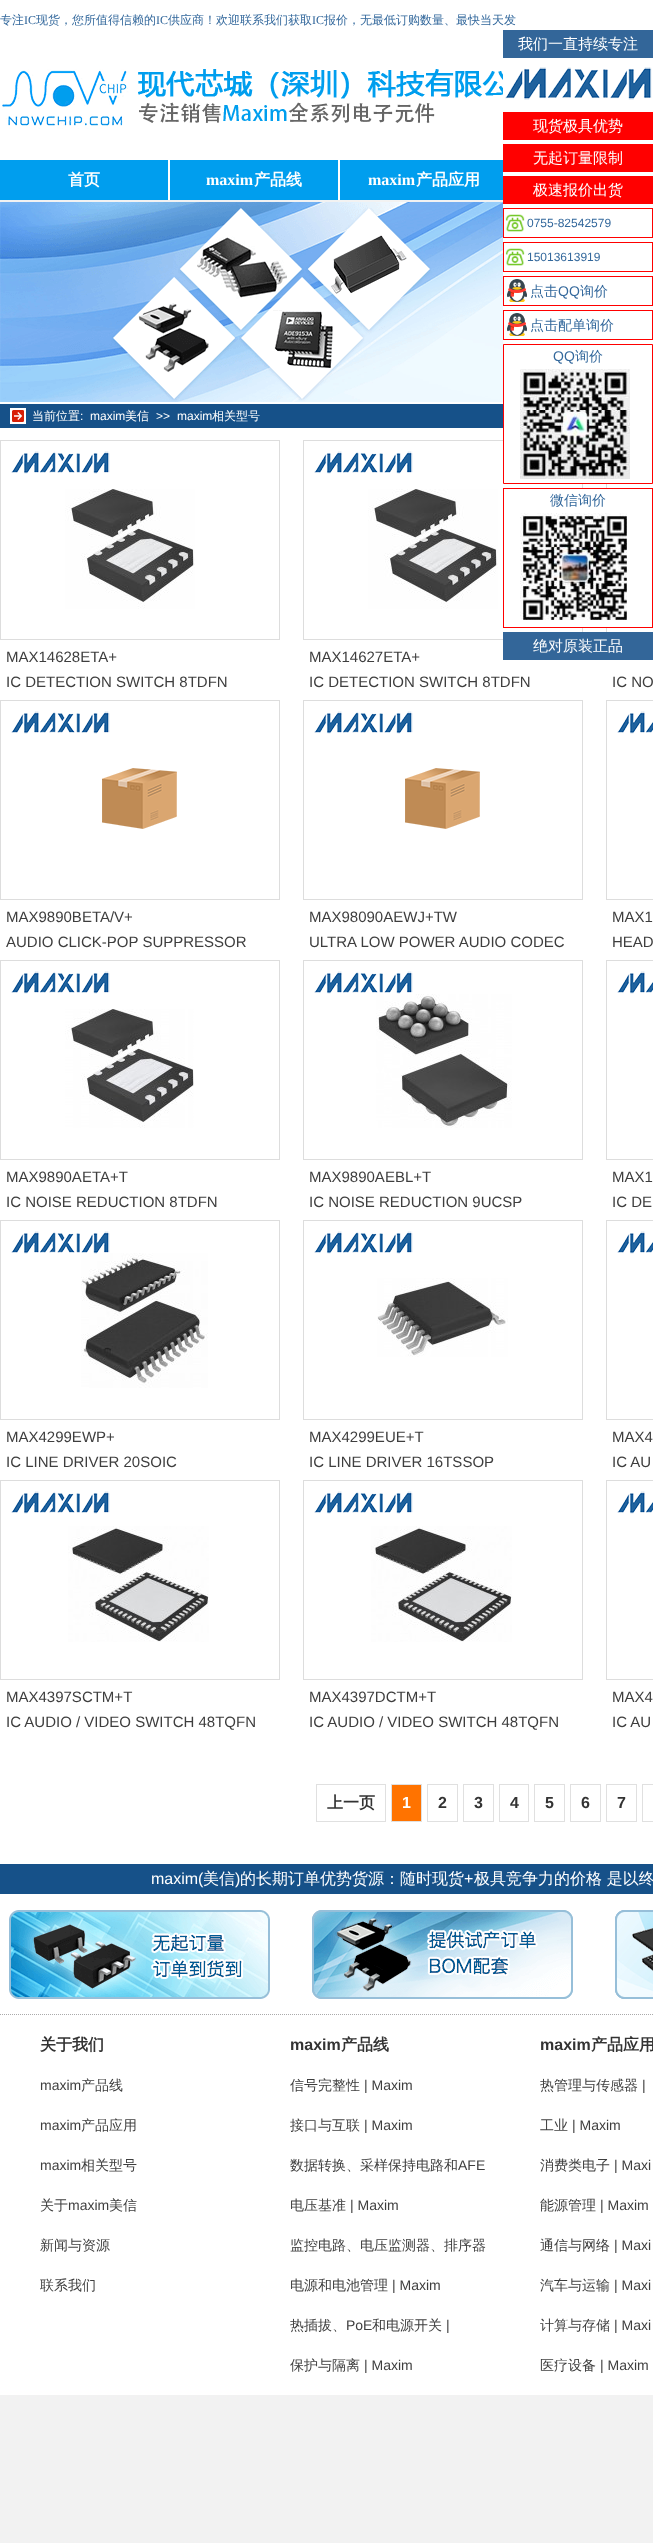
(async () => {
const canvas = document.querySelector("canvas")
canvas.width = 653
canvas.height = 2543
const c = canvas.getContext("2d")
c.miterLimit = 4
c.fontKerning = "normal"
function T(s,x,y){c.fillText(s,x,y)}
function R(x,y,w,h){c.fillRect(x,y,w,h)}
async function I(src,x,y,w,h){const img=new Image();img.src=src;await img.decode();c.drawImage(img,x,y,w,h)}
let path
c.fillStyle="#f2f2f2"
R(0,0,653,2543)
c.fillStyle="#fff"
R(0,0,653,160)
c.font="500 12px WenQuanYi Zen Hei"
c.fillStyle="#33689c"
T("专注",0,24)
c.font="12px Liberation Serif"
T("IC",24,24)
c.font="500 12px WenQuanYi Zen Hei"
T("现货，您所值得信赖的",36,24)
c.font="12px Liberation Serif"
T("IC",156,24)
c.font="500 12px WenQuanYi Zen Hei"
T("供应商！欢迎联系我们获取",168,24)
c.font="12px Liberation Serif"
T("IC",312,24)
c.font="500 12px WenQuanYi Zen Hei"
T("报价，无最低订购数量、最快当天发",324,24)
await I("1.png",2,69,501,60)
c.fillStyle="#fff"
R(168,160,172,40)
c.fillStyle="#009eee"
R(0,160,168,40)
c.font="bold 16px WenQuanYi Zen Hei"
c.fillStyle="#fff"
T("首页",68,185)
c.fillStyle="#009eee"
R(170,160,168,40)
c.font="bold 16px Liberation Serif"
c.fillStyle="#fff"
T("maxim",206,185)
c.font="bold 16px WenQuanYi Zen Hei"
T("产品线",254,185)
c.fillStyle="#009eee"
R(340,160,163,40)
c.font="bold 16px Liberation Serif"
c.fillStyle="#fff"
T("maxim",368,185)
c.font="bold 16px WenQuanYi Zen Hei"
T("产品应用",416,185)
R(503,160,150,184)
c.fillStyle="#369"
R(503,30,150,28)
c.font="500 15px WenQuanYi Zen Hei"
c.fillStyle="#fff"
T("我们一直持续专注",518,49)
await I("2.png",505,67,147,33)
c.fillStyle="#f00"
R(503,112,150,28)
c.fillStyle="#fff"
T("现货极具优势",533,131)
c.fillStyle="#f00"
R(503,144,150,28)
c.fillStyle="#fff"
T("无起订量限制",533,163)
c.fillStyle="#f00"
R(503,176,150,28)
c.fillStyle="#fff"
T("极速报价出货",533,195)
c.strokeStyle="#f00"
c.strokeRect(503.5,208.5,149,29)
await I("3.png",505,214,20,18)
c.font="12px Liberation Sans"
c.fillStyle="#33689c"
T("0755-82542579",527,227)
c.strokeRect(503.5,242.5,149,29)
await I("3.png",505,248,20,18)
T("15013613919",527,261)
c.strokeRect(503.5,276.5,149,29)
await I("4.png",507,279,20,23)
c.font="500 14px WenQuanYi Zen Hei"
T("点击",530,296)
c.font="14px Liberation Sans"
T("QQ",558,296)
c.font="500 14px WenQuanYi Zen Hei"
T("询价",580,296)
c.strokeRect(503.5,310.5,149,29)
await I("4.png",507,313,20,23)
T("点击配单询价",530,330)
c.fillStyle="#fff"
R(0,402,653,1993)
c.strokeStyle="#ddd"
c.strokeRect(303.5,440.5,279,199)
c.strokeRect(606.5,440.5,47,199)
c.beginPath()
c.rect(503.5,344.5,149,139)
c.fill()
c.strokeStyle="#f00"
c.stroke()
c.font="14px Liberation Sans"
c.fillStyle="#33689c"
T("QQ",553,361)
c.font="500 14px WenQuanYi Zen Hei"
T("询价",575,361)
await I("5.png",520,369,110,110)
c.fillStyle="#fff"
R(582,489,25,138)
c.strokeRect(503.5,488.5,149,139)
c.fillStyle="#33689c"
T("微信询价",550,505)
await I("6.png",520,513,107,107)
c.fillStyle="#369"
R(503,632,150,28)
c.font="500 15px WenQuanYi Zen Hei"
c.fillStyle="#fff"
T("绝对原装正品",533,651)
await I("7.png",0,202,503,200)
c.fillStyle="#165189"
R(0,404,503,24)
c.fillStyle="#fff"
R(10,408,16,16)
await I("8.png",12,410,12,12)
c.font="500 12px WenQuanYi Zen Hei"
T("当前位置",32,420)
c.font="12px Liberation Sans"
T(":",80,420)
T("maxim",90,420)
c.font="500 12px WenQuanYi Zen Hei"
T("美信",125,420)
c.font="12px Liberation Sans"
T(">>",156,420)
T("maxim",177,420)
c.font="500 12px WenQuanYi Zen Hei"
T("相关型号",212,420)
c.strokeStyle="#ddd"
c.strokeRect(.5,440.5,279,199)
await I("9.png",65,489,130,120)
await I("10.png",11,451,99,23)
c.font="15px Liberation Sans"
c.fillStyle="#3e3e3e"
T("MAX14628ETA+",6,662)
T("IC DETECTION SWITCH 8TDFN",6,687)
await I("9.png",368,489,130,120)
await I("10.png",314,451,99,23)
T("MAX14627ETA+",309,662)
T("IC DETECTION SWITCH 8TDFN",309,687)
T("IC NO",612,687)
c.strokeRect(.5,700.5,279,199)
await I("11.png",102,768,75,61)
await I("10.png",11,711,99,23)
T("MAX9890BETA/V+",6,922)
T("AUDIO CLICK-POP SUPPRESSOR",6,947)
c.strokeRect(303.5,700.5,279,199)
await I("11.png",405,768,75,61)
await I("10.png",314,711,99,23)
T("MAX98090AEWJ+TW",309,922)
T("ULTRA LOW POWER AUDIO CODEC",309,947)
c.strokeRect(606.5,700.5,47,199)
await I("12.png",617,711,36,23)
T("MAX1",612,922)
T("HEAD",612,947)
c.strokeRect(.5,960.5,279,199)
await I("13.png",65,1009,129,119)
await I("10.png",11,971,99,23)
T("MAX9890AETA+T",6,1182)
T("IC NOISE REDUCTION 8TDFN",6,1207)
c.strokeRect(303.5,960.5,279,199)
await I("14.png",376,994,136,134)
await I("10.png",314,971,99,23)
T("MAX9890AEBL+T",309,1182)
T("IC NOISE REDUCTION 9UCSP",309,1207)
c.strokeRect(606.5,960.5,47,199)
await I("12.png",617,971,36,23)
T("MAX1",612,1182)
T("IC DE",612,1207)
c.strokeRect(.5,1220.5,279,199)
await I("15.png",81,1253,127,135)
await I("16.png",11,1231,99,23)
T("MAX4299EWP+",6,1442)
T("IC LINE DRIVER 20SOIC",6,1467)
c.strokeRect(303.5,1220.5,279,199)
await I("17.png",377,1278,131,79)
await I("10.png",314,1231,99,23)
T("MAX4299EUE+T",309,1442)
T("IC LINE DRIVER 16TSSOP",309,1467)
c.strokeRect(606.5,1220.5,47,199)
await I("12.png",617,1231,36,23)
T("MAX4",612,1442)
T("IC AU",612,1467)
c.strokeRect(.5,1480.5,279,199)
await I("18.png",68,1526,141,116)
await I("10.png",11,1491,99,23)
T("MAX4397SCTM+T",6,1702)
T("IC AUDIO / VIDEO SWITCH 48TQFN",6,1727)
c.strokeRect(303.5,1480.5,279,199)
await I("18.png",371,1526,141,116)
await I("10.png",314,1491,99,23)
T("MAX4397DCTM+T",309,1702)
T("IC AUDIO / VIDEO SWITCH 48TQFN",309,1727)
c.strokeRect(606.5,1480.5,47,199)
await I("12.png",617,1491,36,23)
T("MAX4",612,1702)
T("IC AU",612,1727)
c.strokeStyle="#e0e0e0"
c.strokeRect(316.5,1784.5,69,37)
c.font="bold 16px WenQuanYi Zen Hei"
c.fillStyle="#333"
T("上一页",327,1808)
c.fillStyle="#ff7300"
c.beginPath()
c.rect(391.5,1784.5,30,37)
c.fill()
c.stroke()
c.font="bold 16px Liberation Sans"
c.fillStyle="#fff"
T("1",402,1808)
c.strokeRect(427.5,1784.5,30,37)
c.fillStyle="#333"
T("2",438,1808)
c.strokeRect(463.5,1784.5,30,37)
T("3",474,1808)
c.strokeRect(499.5,1784.5,29,37)
T("4",510,1808)
c.strokeRect(534.5,1784.5,30,37)
T("5",545,1808)
c.strokeRect(570.5,1784.5,30,37)
T("6",581,1808)
c.strokeRect(606.5,1784.5,30,37)
T("7",617,1808)
c.strokeRect(642.5,1784.5,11,37)
path = new Path2D("M0 2014.5h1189")
c.strokeStyle="#aaa"
c.setLineDash([1,1])
c.stroke(path)
c.fillStyle="#165189"
R(0,1864,653,30)
c.font="16px Liberation Sans"
c.fillStyle="#fff"
T("maxim(",151,1884)
c.font="500 16px WenQuanYi Zen Hei"
T("美信",203,1884)
c.font="16px Liberation Sans"
T(")",235,1884)
c.font="500 16px WenQuanYi Zen Hei"
T("的长期订单优势货源：随时现货",240,1884)
c.font="16px Liberation Sans"
T("+",464,1884)
c.font="500 16px WenQuanYi Zen Hei"
T("极具竞争力的价格 是以终",474,1884)
await I("19.png",9,1910,261,89)
await I("20.png",312,1910,261,89)
await I("21.png",615,1910,38,89)
c.font="bold 16px WenQuanYi Zen Hei"
c.fillStyle="#333"
T("关于我们",40,2050)
c.font="14px Liberation Sans"
c.fillStyle="#3e3e3e"
T("maxim",40,2090)
c.font="500 14px WenQuanYi Zen Hei"
T("产品线",81,2090)
c.font="14px Liberation Sans"
T("maxim",40,2130)
c.font="500 14px WenQuanYi Zen Hei"
T("产品应用",81,2130)
c.font="14px Liberation Sans"
T("maxim",40,2170)
c.font="500 14px WenQuanYi Zen Hei"
T("相关型号",81,2170)
T("关于",40,2210)
c.font="14px Liberation Sans"
T("maxim",68,2210)
c.font="500 14px WenQuanYi Zen Hei"
T("美信",109,2210)
T("新闻与资源",40,2250)
T("联系我们",40,2290)
c.font="bold 16px Liberation Sans"
c.fillStyle="#333"
T("maxim",290,2050)
c.font="bold 16px WenQuanYi Zen Hei"
T("产品线",341,2050)
c.font="500 14px WenQuanYi Zen Hei"
c.fillStyle="#3e3e3e"
T("信号完整性",290,2090)
c.font="14px Liberation Sans"
T("| Maxim",364,2090)
c.font="500 14px WenQuanYi Zen Hei"
T("接口与互联",290,2130)
c.font="14px Liberation Sans"
T("| Maxim",364,2130)
c.font="500 14px WenQuanYi Zen Hei"
T("数据转换、采样保持电路和",290,2170)
c.font="14px Liberation Sans"
T("AFE",458,2170)
c.font="500 14px WenQuanYi Zen Hei"
T("电压基准",290,2210)
c.font="14px Liberation Sans"
T("| Maxim",350,2210)
c.font="500 14px WenQuanYi Zen Hei"
T("监控电路、电压监测器、排序器",290,2250)
T("电源和电池管理",290,2290)
c.font="14px Liberation Sans"
T("| Maxim",392,2290)
c.font="500 14px WenQuanYi Zen Hei"
T("热插拔、",290,2330)
c.font="14px Liberation Sans"
T("PoE",346,2330)
c.font="500 14px WenQuanYi Zen Hei"
T("和电源开关",372,2330)
c.font="14px Liberation Sans"
T("|",446,2330)
c.font="500 14px WenQuanYi Zen Hei"
T("保护与隔离",290,2370)
c.font="14px Liberation Sans"
T("| Maxim",364,2370)
c.font="bold 16px Liberation Sans"
c.fillStyle="#333"
T("maxim",540,2050)
c.font="bold 16px WenQuanYi Zen Hei"
T("产品应用",591,2050)
c.font="500 14px WenQuanYi Zen Hei"
c.fillStyle="#3e3e3e"
T("热管理与传感器",540,2090)
c.font="14px Liberation Sans"
T("|",642,2090)
c.font="500 14px WenQuanYi Zen Hei"
T("工业",540,2130)
c.font="14px Liberation Sans"
T("| Maxim",572,2130)
c.font="500 14px WenQuanYi Zen Hei"
T("消费类电子",540,2170)
c.font="14px Liberation Sans"
T("| Maxi",614,2170)
c.font="500 14px WenQuanYi Zen Hei"
T("能源管理",540,2210)
c.font="14px Liberation Sans"
T("| Maxim",600,2210)
c.font="500 14px WenQuanYi Zen Hei"
T("通信与网络",540,2250)
c.font="14px Liberation Sans"
T("| Maxi",614,2250)
c.font="500 14px WenQuanYi Zen Hei"
T("汽车与运输",540,2290)
c.font="14px Liberation Sans"
T("| Maxi",614,2290)
c.font="500 14px WenQuanYi Zen Hei"
T("计算与存储",540,2330)
c.font="14px Liberation Sans"
T("| Maxi",614,2330)
c.font="500 14px WenQuanYi Zen Hei"
T("医疗设备",540,2370)
c.font="14px Liberation Sans"
T("| Maxim",600,2370)
})()
